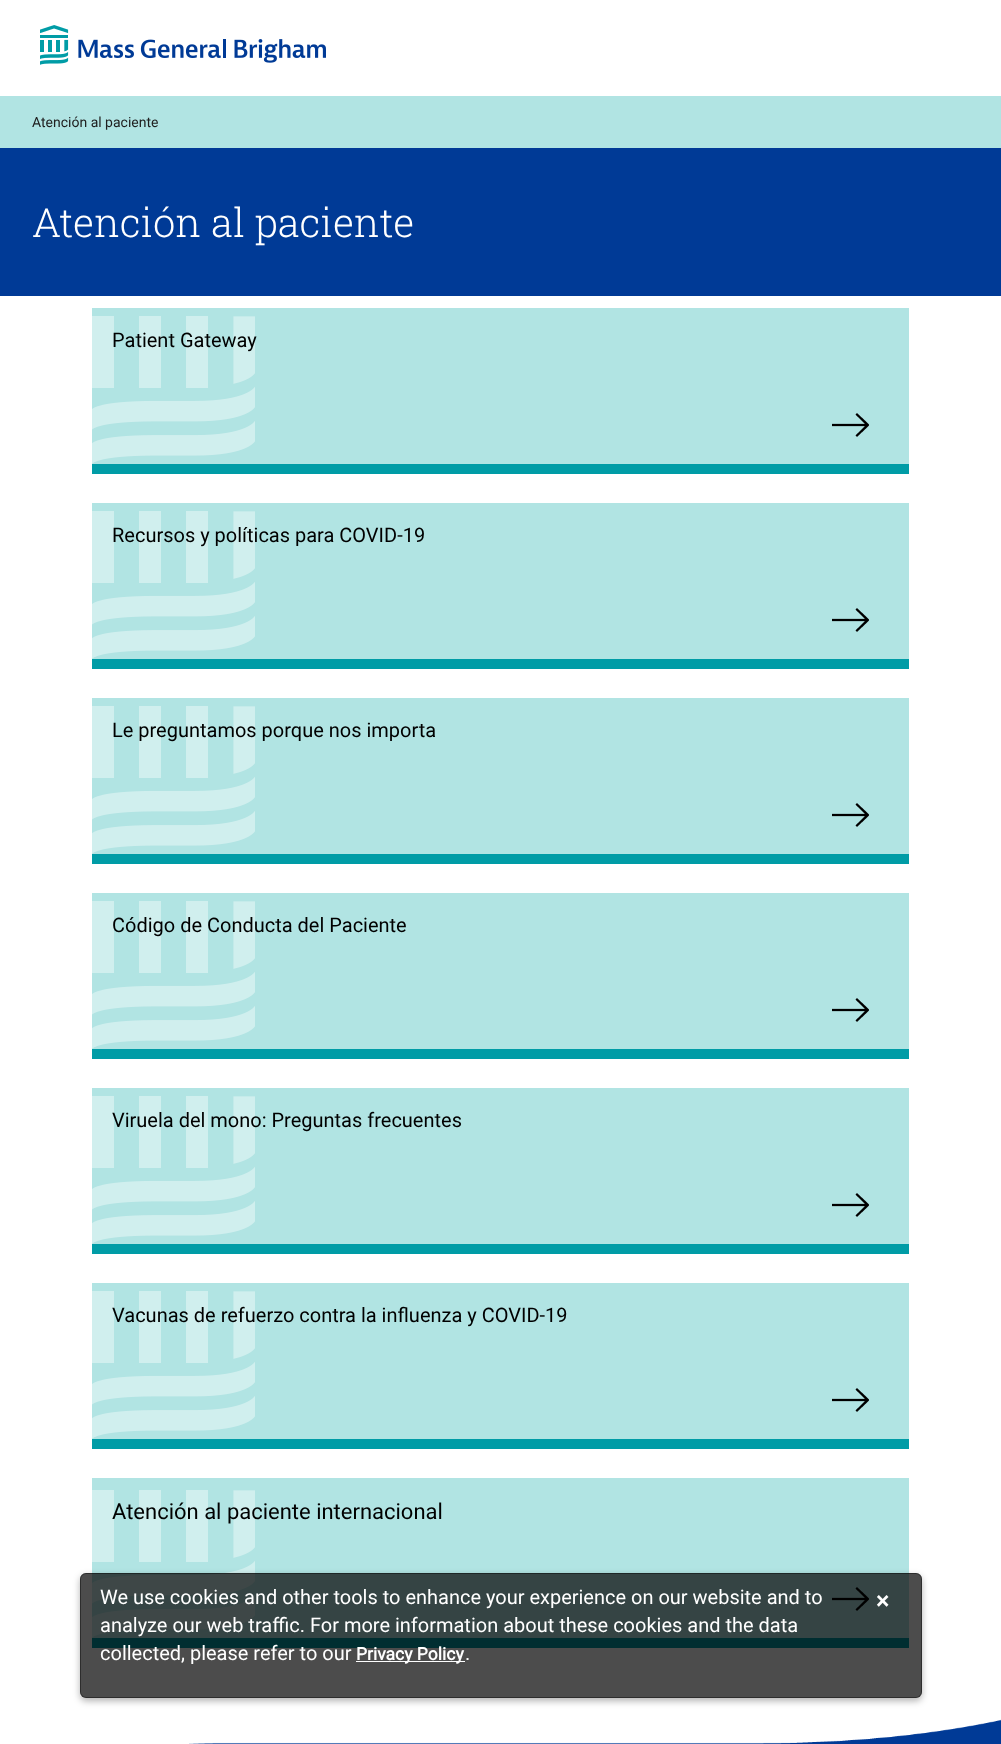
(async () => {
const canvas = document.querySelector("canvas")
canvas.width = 1001
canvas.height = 1744
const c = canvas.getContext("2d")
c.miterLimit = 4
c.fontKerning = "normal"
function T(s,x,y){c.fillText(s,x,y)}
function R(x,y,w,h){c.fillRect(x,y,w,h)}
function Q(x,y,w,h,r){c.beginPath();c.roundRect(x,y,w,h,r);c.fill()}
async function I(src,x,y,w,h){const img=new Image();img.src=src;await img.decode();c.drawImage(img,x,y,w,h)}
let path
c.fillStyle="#fff"
R(0,0,1001,1744)
await I("1.png",40,25,286,40)
c.fillStyle="#b1e4e3"
R(0,96,1001,52)
c.font="14px Roboto"
c.fillStyle="#202020"
T("Atención al paciente",32,127)
c.fillStyle="#003a96"
R(0,148,1001,148)
c.font="300 40px Roboto Slab"
c.fillStyle="#fff"
T("Atención al paciente",32,237)
c.fillStyle="#b1e4e3"
R(92,308,817,156)
await I("2.png",92,316,163,148)
c.fillStyle="#009ca6"
R(92,464,817,10)
c.font="20px Roboto"
c.fillStyle="#000"
T("Patient Gateway",112,347)
await I("3.png",832,413,37,24)
c.fillStyle="#b1e4e3"
R(92,503,817,156)
await I("2.png",92,511,163,148)
c.fillStyle="#009ca6"
R(92,659,817,10)
c.fillStyle="#000"
T("Recursos y políticas para COVID-19",112,542)
await I("3.png",832,608,37,24)
c.fillStyle="#b1e4e3"
R(92,698,817,156)
await I("2.png",92,706,163,148)
c.fillStyle="#009ca6"
R(92,854,817,10)
c.fillStyle="#000"
T("Le preguntamos porque nos importa",112,737)
await I("3.png",832,803,37,24)
c.fillStyle="#b1e4e3"
R(92,893,817,156)
await I("2.png",92,901,163,148)
c.fillStyle="#009ca6"
R(92,1049,817,10)
c.fillStyle="#000"
T("Código de Conducta del Paciente",112,932)
await I("3.png",832,998,37,24)
c.fillStyle="#b1e4e3"
R(92,1088,817,156)
await I("2.png",92,1096,163,148)
c.fillStyle="#009ca6"
R(92,1244,817,10)
c.fillStyle="#000"
T("Viruela del mono: Preguntas frecuentes",112,1127)
await I("3.png",832,1193,37,24)
c.fillStyle="#b1e4e3"
R(92,1283,817,156)
await I("2.png",92,1291,163,148)
c.fillStyle="#009ca6"
R(92,1439,817,10)
c.fillStyle="#000"
T("Vacunas de refuerzo contra la influenza y COVID-19",112,1322)
await I("3.png",832,1388,37,24)
c.fillStyle="#b1e4e3"
R(92,1478,817,160)
await I("2.png",92,1490,163,148)
c.fillStyle="#009ca6"
R(92,1638,817,10)
c.font="22px Roboto"
c.fillStyle="#000"
T("Atención al paciente internacional",112,1519)
await I("3.png",832,1587,37,24)
c.save()
path = new Path2D("M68 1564h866v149h-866zm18 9h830c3.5 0 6 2.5 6 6v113c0 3.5-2.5 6-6 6h-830c-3.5 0-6-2.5-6-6v-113c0-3.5 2.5-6 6-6z")
c.clip(path,"evenodd")
c.fillStyle="#0000004d"
c.filter="blur(3.5px)"
c.beginPath()
c.roundRect(80,1576,842,125,6)
c.fill()
c.filter="none"
c.restore()
c.fillStyle="#000000b3"
Q(80,1573,842,125,6)
c.beginPath()
c.roundRect(80.5,1573.5,841,124,5.5)
c.strokeStyle="#00000066"
c.stroke()
c.font="20px Roboto"
c.fillStyle="#fff"
T("We use cookies and other tools to enhance your experience on our website and to",100,1604)
T("analyze our web traffic. For more information about these cookies and the data",100,1632)
T("collected, please refer to our",100,1660)
c.fillStyle="#fefefe"
R(356,1661,109,1)
c.font="bold 17.5px Roboto"
c.fillStyle="#fff"
T("Privacy Policy",356,1660)
c.font="20px Roboto"
T(".",465,1660)
c.font="bold 24px Roboto"
T("×",876,1609)
await I("4.png",189,1719,812,25)
})()
